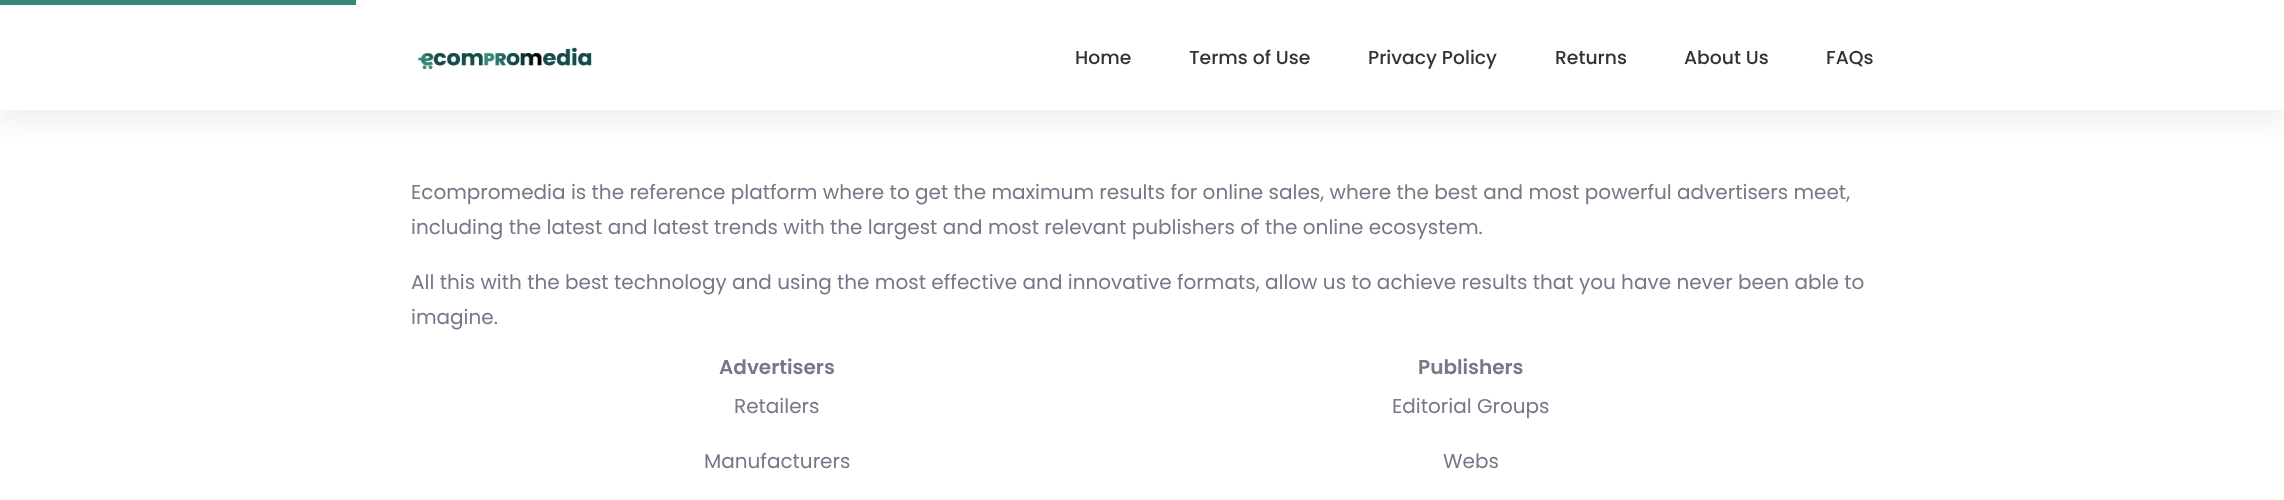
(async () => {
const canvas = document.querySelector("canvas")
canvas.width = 2284
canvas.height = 500
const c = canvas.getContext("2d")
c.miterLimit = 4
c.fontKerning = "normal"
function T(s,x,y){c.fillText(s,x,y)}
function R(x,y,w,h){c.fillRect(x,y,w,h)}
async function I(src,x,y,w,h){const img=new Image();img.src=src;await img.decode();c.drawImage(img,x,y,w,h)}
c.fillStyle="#fff"
R(0,0,2284,500)
c.fillStyle="#4f232314"
c.filter="blur(12.5px)"
c.beginPath()
c.rect(0,13,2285,110)
c.fill()
c.filter="none"
c.fillStyle="#fff"
R(0,0,2284,110)
c.fillStyle="#37877b"
R(0,0,356,5)
await I("1.png",418,47,174,23)
c.font="500 18.75px Poppins"
c.fillStyle="#333"
T("Home",1075,64)
T("Terms of Use",1189,64)
T("Privacy Policy",1368,64)
T("Returns",1555,64)
T("About Us",1684,64)
T("FAQs",1826,64)
c.font="20px Poppins"
c.fillStyle="#797687"
T("Ecompromedia is the reference platform where to get the maximum results for online sales, where the best and most powerful advertisers meet,",411,199)
T("including the latest and latest trends with the largest and most relevant publishers of the online ecosystem.",411,234)
T("All this with the best technology and using the most effective and innovative formats, allow us to achieve results that you have never been able to",411,289)
T("imagine.",411,324)
c.font="600 20px Poppins"
T("Advertisers",719,374)
c.font="20px Poppins"
T("Retailers",734,413)
T("Manufacturers",704,468)
c.font="600 20px Poppins"
T("Publishers",1418,374)
c.font="20px Poppins"
T("Editorial Groups",1392,413)
T("Webs",1443,468)
})()
